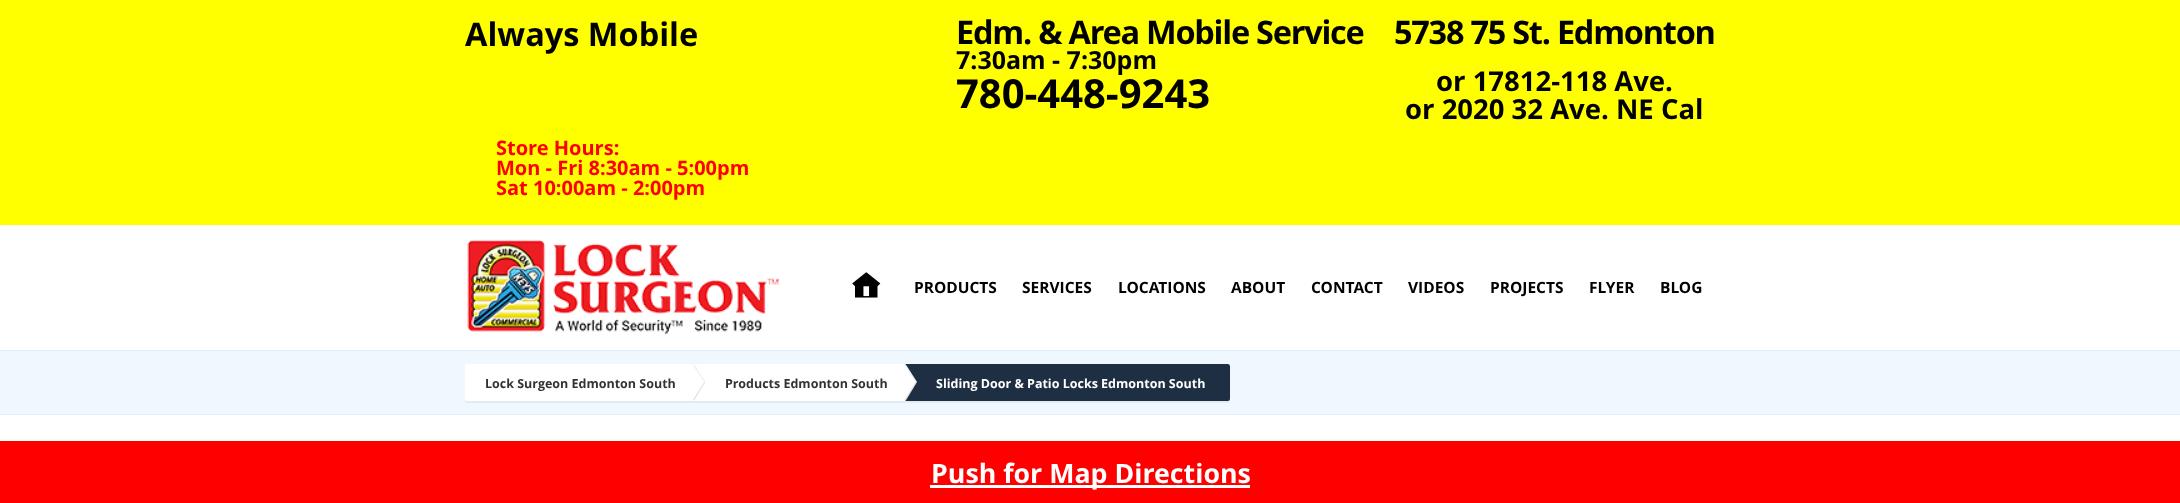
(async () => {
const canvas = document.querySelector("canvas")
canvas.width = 2180
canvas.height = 503
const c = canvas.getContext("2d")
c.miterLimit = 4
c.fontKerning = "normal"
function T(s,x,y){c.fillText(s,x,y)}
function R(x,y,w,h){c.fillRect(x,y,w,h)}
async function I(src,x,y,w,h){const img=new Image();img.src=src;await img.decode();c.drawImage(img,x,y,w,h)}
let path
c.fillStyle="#fff"
R(0,0,2180,503)
c.fillStyle="#ff0"
R(0,0,2180,225)
c.font="bold 32.5px Open Sans"
c.fillStyle="#000"
T("Always Mobile",465,46)
c.letterSpacing="-1.25px"
T("Edm. & Area Mobile Service",956,44)
c.letterSpacing="0px"
c.font="bold 25px Open Sans"
T("7:30am - 7:30pm",956,69)
c.font="bold 40px Open Sans"
T("780-448-9243",956,108)
c.letterSpacing="-1.25px"
c.font="bold 32.5px Open Sans"
T("5738 75 St. Edmonton",1394,44)
c.letterSpacing="0px"
c.font="bold 27.5px Open Sans"
T("or 17812-118 Ave.",1436,91)
T("or 2020 32 Ave. NE Cal",1405,119)
c.font="bold 20px Open Sans"
c.fillStyle="#f00"
T("Store Hours:",496,155)
T("Mon - Fri 8:30am - 5:00pm",496,175)
T("Sat 10:00am - 2:00pm",496,195)
await I("1.png",467,239,312,95)
await I("2.png",852,272,29,26)
c.font="bold 15.5px Open Sans"
c.fillStyle="#000"
T("PRODUCTS",914,293)
T("SERVICES",1022,293)
T("LOCATIONS",1118,293)
T("ABOUT",1231,293)
T("CONTACT",1311,293)
T("VIDEOS",1408,293)
T("PROJECTS",1490,293)
T("FLYER",1589,293)
T("BLOG",1660,293)
c.fillStyle="#eff7ff"
R(0,351,2180,63)
c.fillStyle="#e3ebf2"
R(0,350,2180,1)
R(0,414,2180,1)
path = new Path2D("M465 399c0 2 0 4 3 4h226v-38v36h-226c-2 0-3-1-3-2z")
c.fill(path)
c.fillStyle="#fff"
c.beginPath()
c.roundRect(465,364,229,37,[2.5,0,0,2.5])
c.fill()
c.font="bold 12.5px Open Sans"
c.fillStyle="#333"
T("Lock Surgeon Edmonton South",485,388)
c.fillStyle="#fff"
R(694,364,211,37)
c.fillStyle="#f2f2f2"
path = new Path2D("M694 364l11.5 18h-1.5l-11-16.5z")
c.fill(path)
c.fillStyle="#e6e6e6"
path = new Path2D("M705.5 382l-11.5 19l-1-1.5l11-17.5z")
c.fill(path)
c.fillStyle="#e3ebf2"
R(694,401,211,2)
c.fillStyle="#333"
T("Products Edmonton South",725,388)
c.fillStyle="#e3ebf2"
path = new Path2D("M905 401v2h323c2 0 2-2 2-4c0 1-1 2-2 2z")
c.fill(path)
c.fillStyle="#1f2f43"
c.beginPath()
c.roundRect(905,364,325,37,[0,2.5,2.5,0])
c.fill()
c.fillStyle="#fff"
path = new Path2D("M905.5 364l11.5 18l-11.5 19l-12-18z")
c.fill(path)
c.fillStyle="#0000000d"
path = new Path2D("M905.5 364l11.5 18h-1.5l-11-16.5z")
c.fill(path)
c.fillStyle="#0000001a"
path = new Path2D("M917 382l-11.5 19l-1-1.5l11-17.5z")
c.fill(path)
c.fillStyle="#fff"
T("Sliding Door & Patio Locks Edmonton South",936,388)
c.fillStyle="#f00"
R(0,441,2180,62)
c.fillStyle="#fff"
R(930,485,320,3)
c.font="bold 26.75px Open Sans"
T("Push for Map Directions",931,483)
})()
